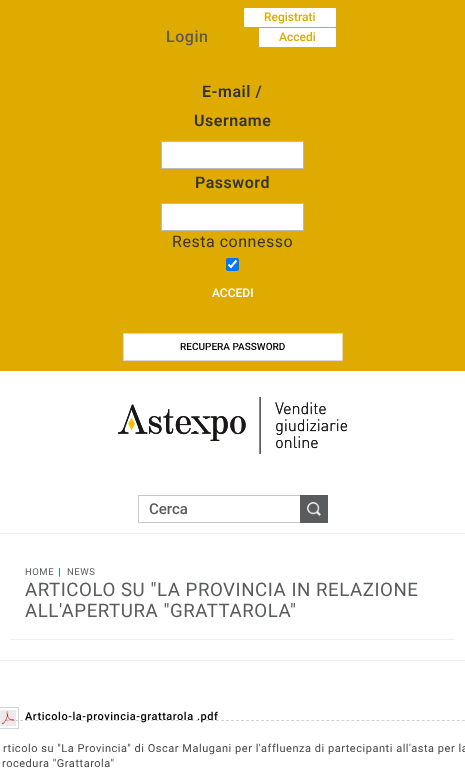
(async () => {
const canvas = document.querySelector("canvas")
canvas.width = 465
canvas.height = 782
const c = canvas.getContext("2d")
c.miterLimit = 4
c.fontKerning = "normal"
function T(s,x,y){c.fillText(s,x,y)}
function R(x,y,w,h){c.fillRect(x,y,w,h)}
function Q(x,y,w,h,r){c.beginPath();c.roundRect(x,y,w,h,r);c.fill()}
async function I(src,x,y,w,h){const img=new Image();img.src=src;await img.decode();c.drawImage(img,x,y,w,h)}
let path
c.fillStyle="#fff"
R(0,0,465,782)
c.fillStyle="#dfab00"
R(0,0,465,371)
c.fillStyle="#fff"
Q(244,8,92,19,1)
c.font="500 12px Roboto"
c.fillStyle="#dfab00"
T("Registrati",264,21)
c.letterSpacing="0.53px"
c.font="500 16px Roboto"
c.fillStyle="#5a5b5d"
T("Login",166,42)
c.font="600 16px Roboto"
c.fillStyle="#333"
T("E-mail /",202,97)
T("Username",194,126)
c.fillStyle="#fff"
c.beginPath()
c.rect(161.5,141.5,142,27)
c.fill()
c.strokeStyle="#bbb"
c.stroke()
c.fillStyle="#333"
T("Password",195,188)
c.fillStyle="#fff"
c.beginPath()
c.rect(161.5,203.5,142,27)
c.fill()
c.stroke()
c.font="16px Roboto"
c.fillStyle="#333"
T("Resta connesso",172,247)
c.fillStyle="#0075ff"
Q(226,258,13,13,2)
path = new Path2D("M228.5 264.5l2.5 2.5l5.5-6.5")
c.strokeStyle="#fff"
c.lineWidth=2.1
c.stroke(path)
c.letterSpacing="0px"
c.font="500 12px Roboto"
c.fillStyle="#fff"
T("ACCEDI",212,297)
c.beginPath()
c.rect(123.5,333.5,219,27)
c.fill()
c.strokeStyle="#d8d8d8"
c.lineWidth=1
c.stroke()
c.font="500 10px Roboto"
c.fillStyle="#000"
T("RECUPERA PASSWORD",180,350)
c.fillStyle="#fff"
Q(259,28,77,19,1)
c.font="500 12px Roboto"
c.fillStyle="#dfab00"
T("Accedi",279,41)
await I("1.png",118,397,229,57)
await I("2.png",118,397,229,57)
c.fillStyle="#c5c6c6"
path = new Path2D("M138 495h162v1h-161z")
c.fill(path)
path = new Path2D("M300 523h-162l1-1h161z")
c.fill(path)
c.fillStyle="#5a5b5d59"
path = new Path2D("M138 523v-28l1 1v26z")
c.fill(path)
c.font="500 15px Roboto"
c.fillStyle="#5a5b5d"
T("Cerca",149,514)
R(300,495,28,28)
await I("3.png",307,502,14,14)
c.fillStyle="#eee"
R(0,533,465,1)
R(0,660,465,1)
await I("4.png",59,568,1,9)
c.letterSpacing="0.53px"
c.font="9.5px Roboto"
c.fillStyle="#5a5b5d"
T("HOME",25,575)
T("NEWS",67,575)
c.font="18.7px Roboto"
T("ARTICOLO SU \"LA PROVINCIA IN RELAZIONE",25,596)
T("ALL'APERTURA \"GRATTAROLA\"",25,617)
c.fillStyle="#eee"
R(10,639,445,1)
path = new Path2D("M-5 720.5h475")
c.strokeStyle="#d3d3d3"
c.setLineDash([3,2.02])
c.stroke(path)
c.setLineDash([])
c.strokeRect(-.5,707.5,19,21)
await I("5.png",0,710,16,16)
c.font="500 11px Roboto"
c.fillStyle="#000"
T("Articolo-la-provincia-grattarola .pdf",25,720)
c.font="11px Roboto"
c.fillStyle="#484848"
T("rticolo su \"La Provincia\" di Oscar Malugani per l'affluenza di partecipanti all'asta per la",3,752)
T("rocedura \"Grattarola\"",2,767)
})()
